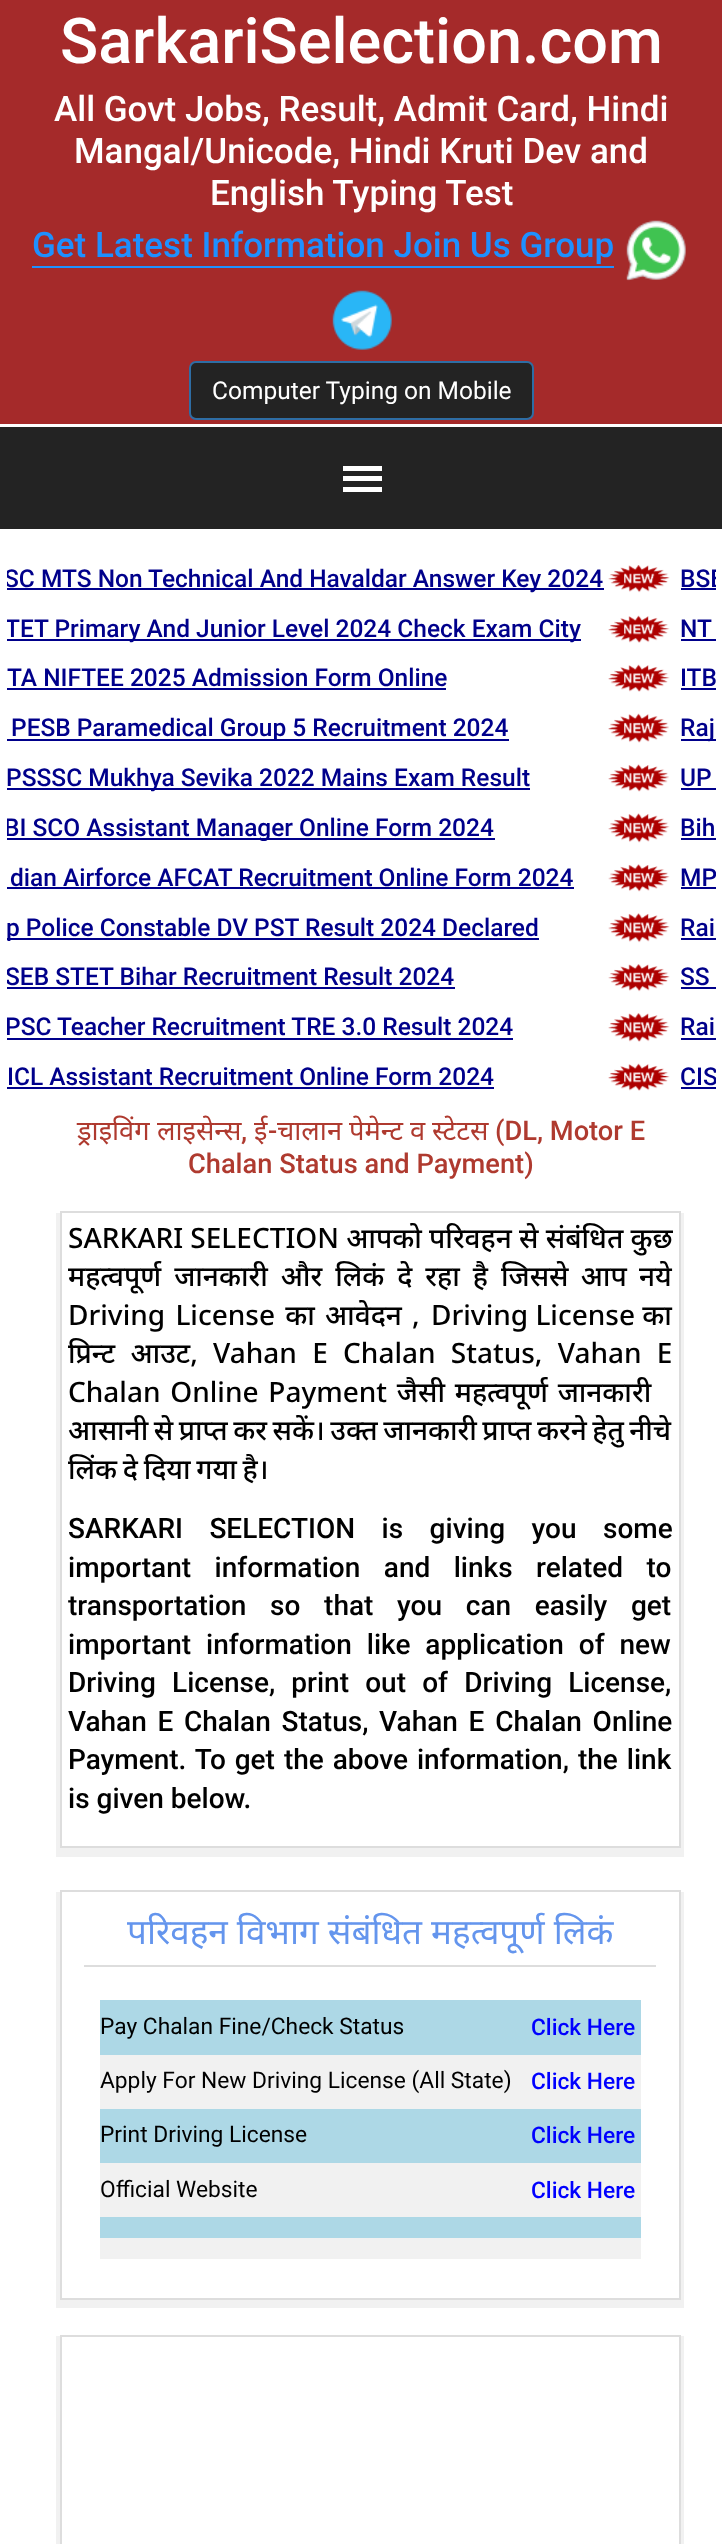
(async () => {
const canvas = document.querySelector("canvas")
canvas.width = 722
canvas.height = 2544
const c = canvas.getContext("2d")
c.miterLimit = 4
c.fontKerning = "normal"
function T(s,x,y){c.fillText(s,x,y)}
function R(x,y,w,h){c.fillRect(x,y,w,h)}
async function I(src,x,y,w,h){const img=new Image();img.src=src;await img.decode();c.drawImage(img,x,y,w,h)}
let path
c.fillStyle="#fff"
R(0,0,722,2544)
c.fillStyle="#a52a2a"
R(0,0,722,424)
c.font="500 63px Roboto"
c.fillStyle="#fff"
T("SarkariSelection.com",60,63)
c.font="500 35px Roboto"
T("All Govt Jobs, Result, Admit Card, Hindi",54,121)
T("Mangal/Unicode, Hindi Kruti Dev and",74,163)
T("English Typing Test",210,205)
c.fillStyle="#1e90ff"
T("Get Latest Information Join Us Group",32,257)
R(32,266,582,2)
await I("1.png",626,220,60,61)
await I("2.png",332,290,60,60)
c.fillStyle="#232323"
c.beginPath()
c.roundRect(190,362,343,57,6)
c.fill()
c.strokeStyle="#2e6da4"
c.lineWidth=2
c.stroke()
c.font="24.5px Roboto"
c.fillStyle="#fff"
T("Computer Typing on Mobile",212,399)
c.fillStyle="#232323"
R(0,427,722,102)
c.fillStyle="#fff"
R(343,466,39,5)
R(343,476,39,5)
R(343,487,39,5)
c.fillStyle="#00008b"
R(7,588,597,2)
c.save()
c.beginPath()
c.rect(7,553,709,550)
c.clip()
c.font="500 24.5px Roboto"
T("SC MTS Non Technical And Havaldar Answer Key 2024",4,587)
c.restore()
await I("3.png",608,565,62,28)
c.save()
c.beginPath()
c.rect(7,553,709,550)
c.clip()
c.font="500 24.5px Roboto"
T("BSE",680,587)
c.restore()
R(681,588,35,2)
R(7,639,574,2)
c.save()
c.beginPath()
c.rect(7,553,709,550)
c.clip()
c.font="500 24.5px Roboto"
T("TET Primary And Junior Level 2024 Check Exam City",5,637)
c.restore()
await I("4.png",608,615,62,28)
c.font="500 24.5px Roboto"
T("NT",680,637)
R(681,639,35,2)
T("TA NIFTEE 2025 Admission Form Online",7,686)
R(7,688,439,2)
await I("4.png",608,664,62,28)
T("ITB",680,686)
R(681,688,35,2)
R(7,739,502,2)
T("PESB Paramedical Group 5 Recruitment 2024",11,736)
await I("5.png",608,713,61,30)
R(681,739,35,2)
T("Raj",680,736)
R(7,788,523,2)
T("PSSSC Mukhya Sevika 2022 Mains Exam Result",6,786)
await I("6.png",608,764,61,28)
T("UP",680,786)
R(681,788,35,2)
R(7,838,488,2)
c.save()
c.beginPath()
c.rect(7,553,709,550)
c.clip()
T("BI SCO Assistant Manager Online Form 2024",4,836)
c.restore()
await I("7.png",608,813,62,30)
T("Bih",680,836)
R(681,838,35,2)
T("dian Airforce AFCAT Recruitment Online Form 2024",10,886)
R(7,887,567,2)
await I("8.png",608,864,62,28)
c.save()
c.beginPath()
c.rect(7,553,709,550)
c.clip()
T("MP",680,886)
c.restore()
R(681,887,35,2)
R(7,938,532,2)
T("p Police Constable DV PST Result 2024 Declared",6,936)
await I("9.png",608,913,62,30)
T("Rai",680,936)
R(681,938,35,2)
c.save()
c.beginPath()
c.rect(7,553,709,550)
c.clip()
T("SEB STET Bihar Recruitment Result 2024",5,985)
c.restore()
R(7,987,448,2)
await I("10.png",608,964,62,28)
T("SS",680,985)
R(681,987,35,2)
c.save()
c.beginPath()
c.rect(7,553,709,550)
c.clip()
T("PSC Teacher Recruitment TRE 3.0 Result 2024",5,1035)
c.restore()
R(7,1038,506,2)
await I("11.png",608,1013,62,29)
T("Rai",680,1035)
R(681,1038,35,2)
T("ICL Assistant Recruitment Online Form 2024",7,1085)
R(7,1087,487,2)
await I("12.png",608,1063,62,28)
c.save()
c.beginPath()
c.rect(7,553,709,550)
c.clip()
T("CIS",680,1085)
c.restore()
R(681,1087,35,2)
c.font="27.25px Noto Sans"
c.fillStyle="#af3a2f"
T("ड्राइविंग",77,1140)
T("लाइसेन्स",157,1140)
T("ई",254,1140)
c.font="500 27.25px Roboto"
T("-",268,1140)
c.font="27.25px Noto Sans"
T("चालान",277,1140)
T("पेमेन्ट",349,1140)
T("व",410,1140)
T("स्टेटस",432,1140)
c.font="500 27.25px Roboto"
T("(DL, Motor E",495,1140)
T(",",241,1140)
T("Chalan Status and Payment)",188,1173)
c.fillStyle="#f1f1f1"
path = new Path2D("M56 1213v644h628v-644h-3v635h-621v-635z")
c.fill(path)
c.strokeStyle="#ddd"
c.strokeRect(61,1212,619,635)
c.font="500 28px Noto Sans"
c.fillStyle="#000"
T("SARKARI SELECTION आपको परिवहन से संबंधित कुछ",68,1248)
c.wordSpacing="5.75px"
T("महत्वपूर्ण जानकारी और लिकं दे रहा है",68,1286)
c.wordSpacing="5px"
T("जिससे आप नये",501,1286)
c.wordSpacing="3px"
T("Driving License का आवेदन ,",68,1325)
c.wordSpacing="0px"
T("Driving License का",431,1325)
c.wordSpacing="8px"
T("प्रिन्ट आउट, Vahan E Chalan Status, Vahan E",68,1363)
c.wordSpacing="2.5px"
T("Chalan Online Payment जैसी महत्वपूर्ण जानकारी",68,1402)
c.wordSpacing="-1.75px"
T("आसानी से प्राप्त कर सकें। उक्त जानकारी प्राप्त करने हेतु नीचे",68,1440)
c.wordSpacing="-1.5px"
T("लिंक दे दिया गया है।",68,1479)
c.wordSpacing="19.5px"
c.font="500 28px Roboto"
T("SARKARI SELECTION is giving you some",68,1538)
c.wordSpacing="16.5px"
T("important information and links related to",68,1577)
c.wordSpacing="16.75px"
T("transportation so that you can easily get",68,1615)
c.wordSpacing="8px"
T("important information like application of new",68,1654)
c.wordSpacing="9.25px"
T("Driving License, print out of Driving License,",68,1692)
c.wordSpacing="3.75px"
T("Vahan E Chalan Status, Vahan E Chalan Online",68,1731)
c.wordSpacing="2px"
T("Payment. To get the above information, the link",68,1769)
c.wordSpacing="0px"
T("is given below.",68,1808)
c.fillStyle="#f1f1f1"
path = new Path2D("M56 1892v416h628v-416h-3v408h-621v-408z")
c.fill(path)
c.strokeRect(61,1891,619,408)
c.fillStyle="#ddd"
R(84,1965,572,2)
c.font="35px Noto Sans"
c.fillStyle="#6495ed"
T("परिवहन विभाग संबंधित महत्वपूर्ण लिकं",127,1944)
c.fillStyle="#add8e6"
R(100,2000,541,55)
c.font="22.75px Roboto"
c.fillStyle="#000"
T("Pay Chalan Fine/Check Status",100,2034)
c.font="500 22.75px Roboto"
c.fillStyle="#00f"
T("Click Here",531,2035)
c.fillStyle="#f1f1f1"
R(100,2055,541,54)
c.font="22.75px Roboto"
c.fillStyle="#000"
T("Apply For New Driving License (All State)",100,2088)
c.font="500 22.75px Roboto"
c.fillStyle="#00f"
T("Click Here",531,2089)
c.fillStyle="#add8e6"
R(100,2109,541,54)
c.font="22.75px Roboto"
c.fillStyle="#000"
T("Print Driving License",100,2142)
c.font="500 22.75px Roboto"
c.fillStyle="#00f"
T("Click Here",531,2143)
c.fillStyle="#f1f1f1"
R(100,2163,541,54)
c.font="22.75px Roboto"
c.fillStyle="#000"
T("Official Website",100,2197)
c.font="500 22.75px Roboto"
c.fillStyle="#00f"
T("Click Here",531,2198)
c.fillStyle="#add8e6"
R(100,2217,541,21)
c.fillStyle="#f1f1f1"
R(100,2238,541,21)
path = new Path2D("M56 2336v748h628v-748h-3v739h-621v-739z")
c.fill(path)
c.strokeRect(61,2336,619,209)
})()
